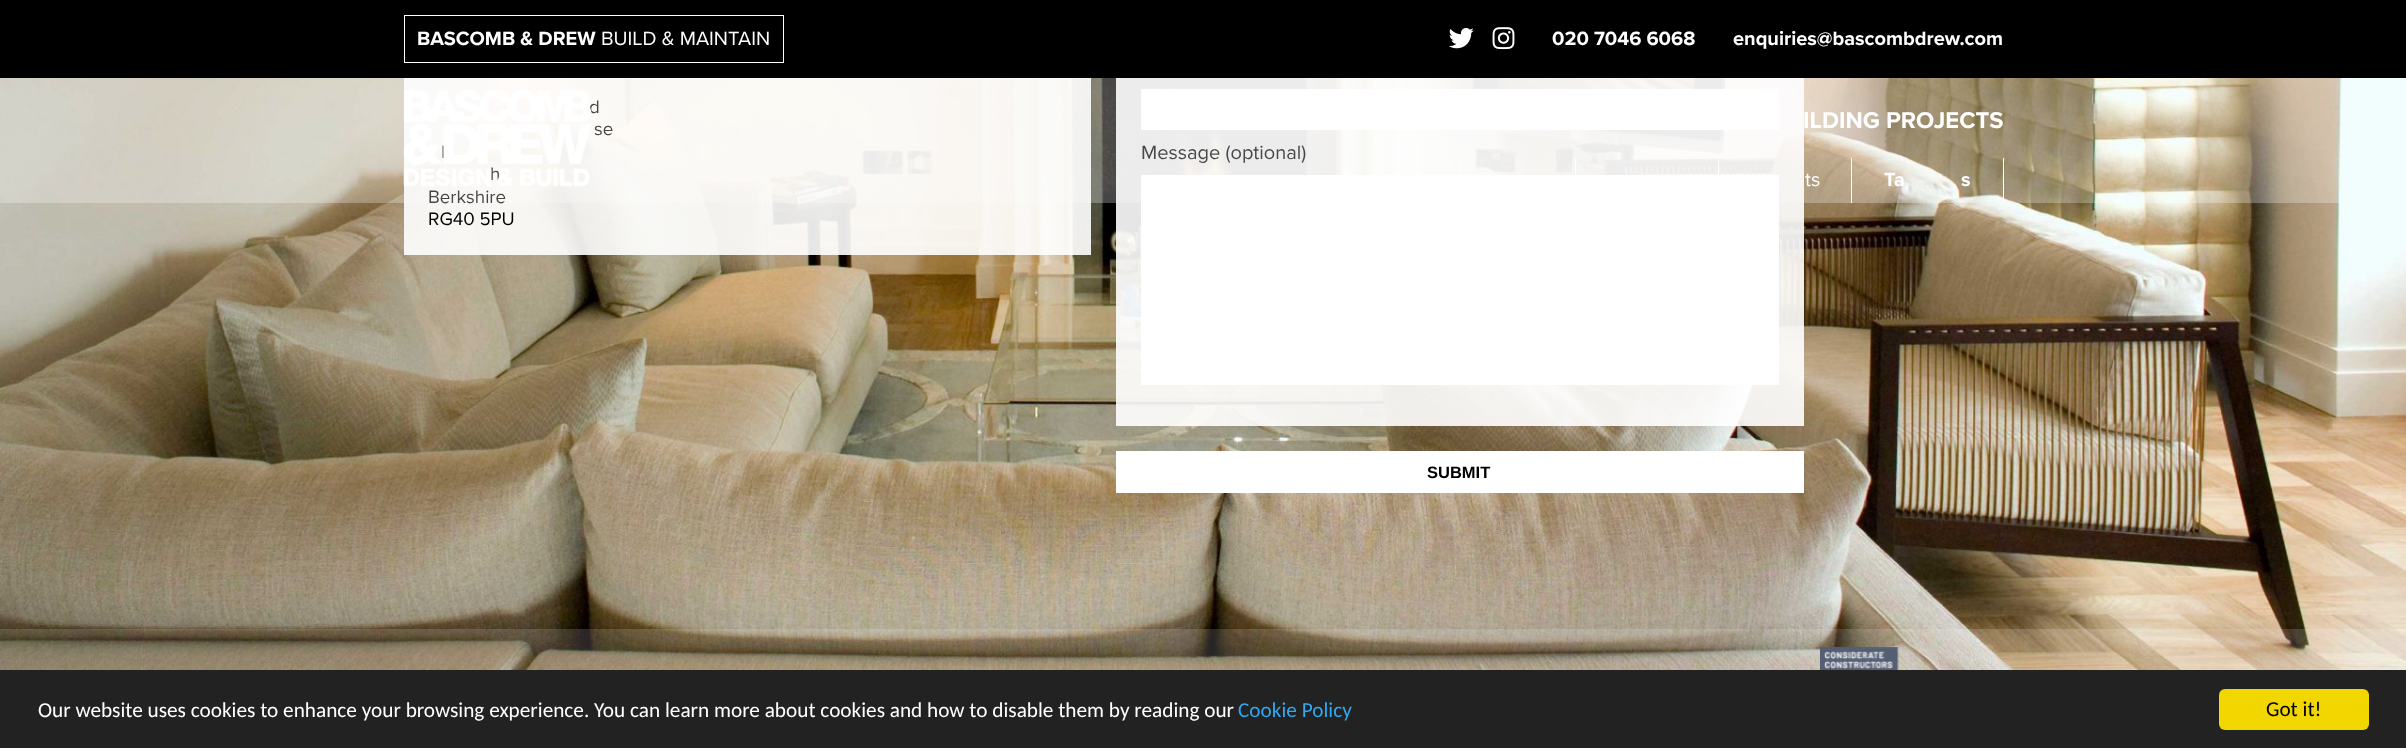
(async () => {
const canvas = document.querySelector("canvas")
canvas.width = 2406
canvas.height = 748
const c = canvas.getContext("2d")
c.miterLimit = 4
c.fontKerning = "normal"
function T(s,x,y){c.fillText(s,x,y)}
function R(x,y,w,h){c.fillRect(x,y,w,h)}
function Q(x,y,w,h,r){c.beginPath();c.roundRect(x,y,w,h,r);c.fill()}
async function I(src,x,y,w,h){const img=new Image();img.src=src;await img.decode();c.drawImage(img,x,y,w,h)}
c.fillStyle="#fff"
R(0,0,2406,748)
c.fillStyle="#000"
R(0,0,2406,78)
c.strokeStyle="#fff"
c.strokeRect(404.5,15.5,379,47)
c.font="bold 20px Proxima Nova"
c.fillStyle="#fff"
T("BASCOMB & DREW",417,45)
c.font="20px Proxima Nova"
T("BUILD & MAINTAIN",601,45)
await I("1.png",1449,28,25,21)
await I("2.png",1492,27,23,23)
c.font="bold 20px Proxima Nova"
T("020 7046 6068",1552,45)
T("enquiries@bascombdrew.com",1733,45)
await I("4.png",0,78,2406,592)
c.fillStyle="#ffffffe6"
R(404,78,687,177)
c.font="18.75px Proxima Nova"
c.fillStyle="#000"
T("d",589,113)
T("se",594,135)
T("l",441,158)
T("h",490,180)
T("Berkshire",428,203)
c.fillStyle="#ffffffe6"
R(1116,78,688,348)
c.fillStyle="#fff"
R(1141,89,638,41)
c.font="20px Proxima Nova"
c.fillStyle="#000"
T("Message (optional)",1141,159)
c.fillStyle="#fff"
R(1141,175,638,210)
c.fillStyle="#ffffff26"
R(0,78,2346,125)
R(0,78,2346,125)
await I("3.png",403,90,189,97)
c.font="bold 23.75px Proxima Nova"
c.fillStyle="#fff"
T("ILDING PROJECTS",1803,128)
R(1459,158,1,17)
R(1575,158,1,17)
R(1718,158,1,17)
c.font="20px Proxima Nova"
T("ts",1805,186)
R(2003,158,1,45)
R(1851,158,1,45)
c.font="bold 20px Proxima Nova"
T("Ta",1884,186)
T("s",1961,186)
c.font="18.75px Proxima Nova"
c.fillStyle="#000"
T("RG40 5PU",428,225)
c.fillStyle="#fff"
R(1116,451,688,42)
c.font="bold 16.5px Liberation Sans"
c.fillStyle="#000"
T("SUBMIT",1427,478)
c.fillStyle="#ffffff26"
R(0,629,2406,41)
await I("5.png",1820,647,79,23)
c.fillStyle="#222"
R(0,670,2406,78)
c.font="21.25px Carlito"
c.fillStyle="#fff"
T("Our website uses cookies to enhance your browsing experience. You can learn more about cookies and how to disable them by reading our",38,717)
c.fillStyle="#31a8f0"
T("Cookie Policy",1238,717)
c.fillStyle="#f1d600"
Q(2219,689,150,41,6)
c.fillStyle="#000"
T("Got it!",2266,716)
})()
